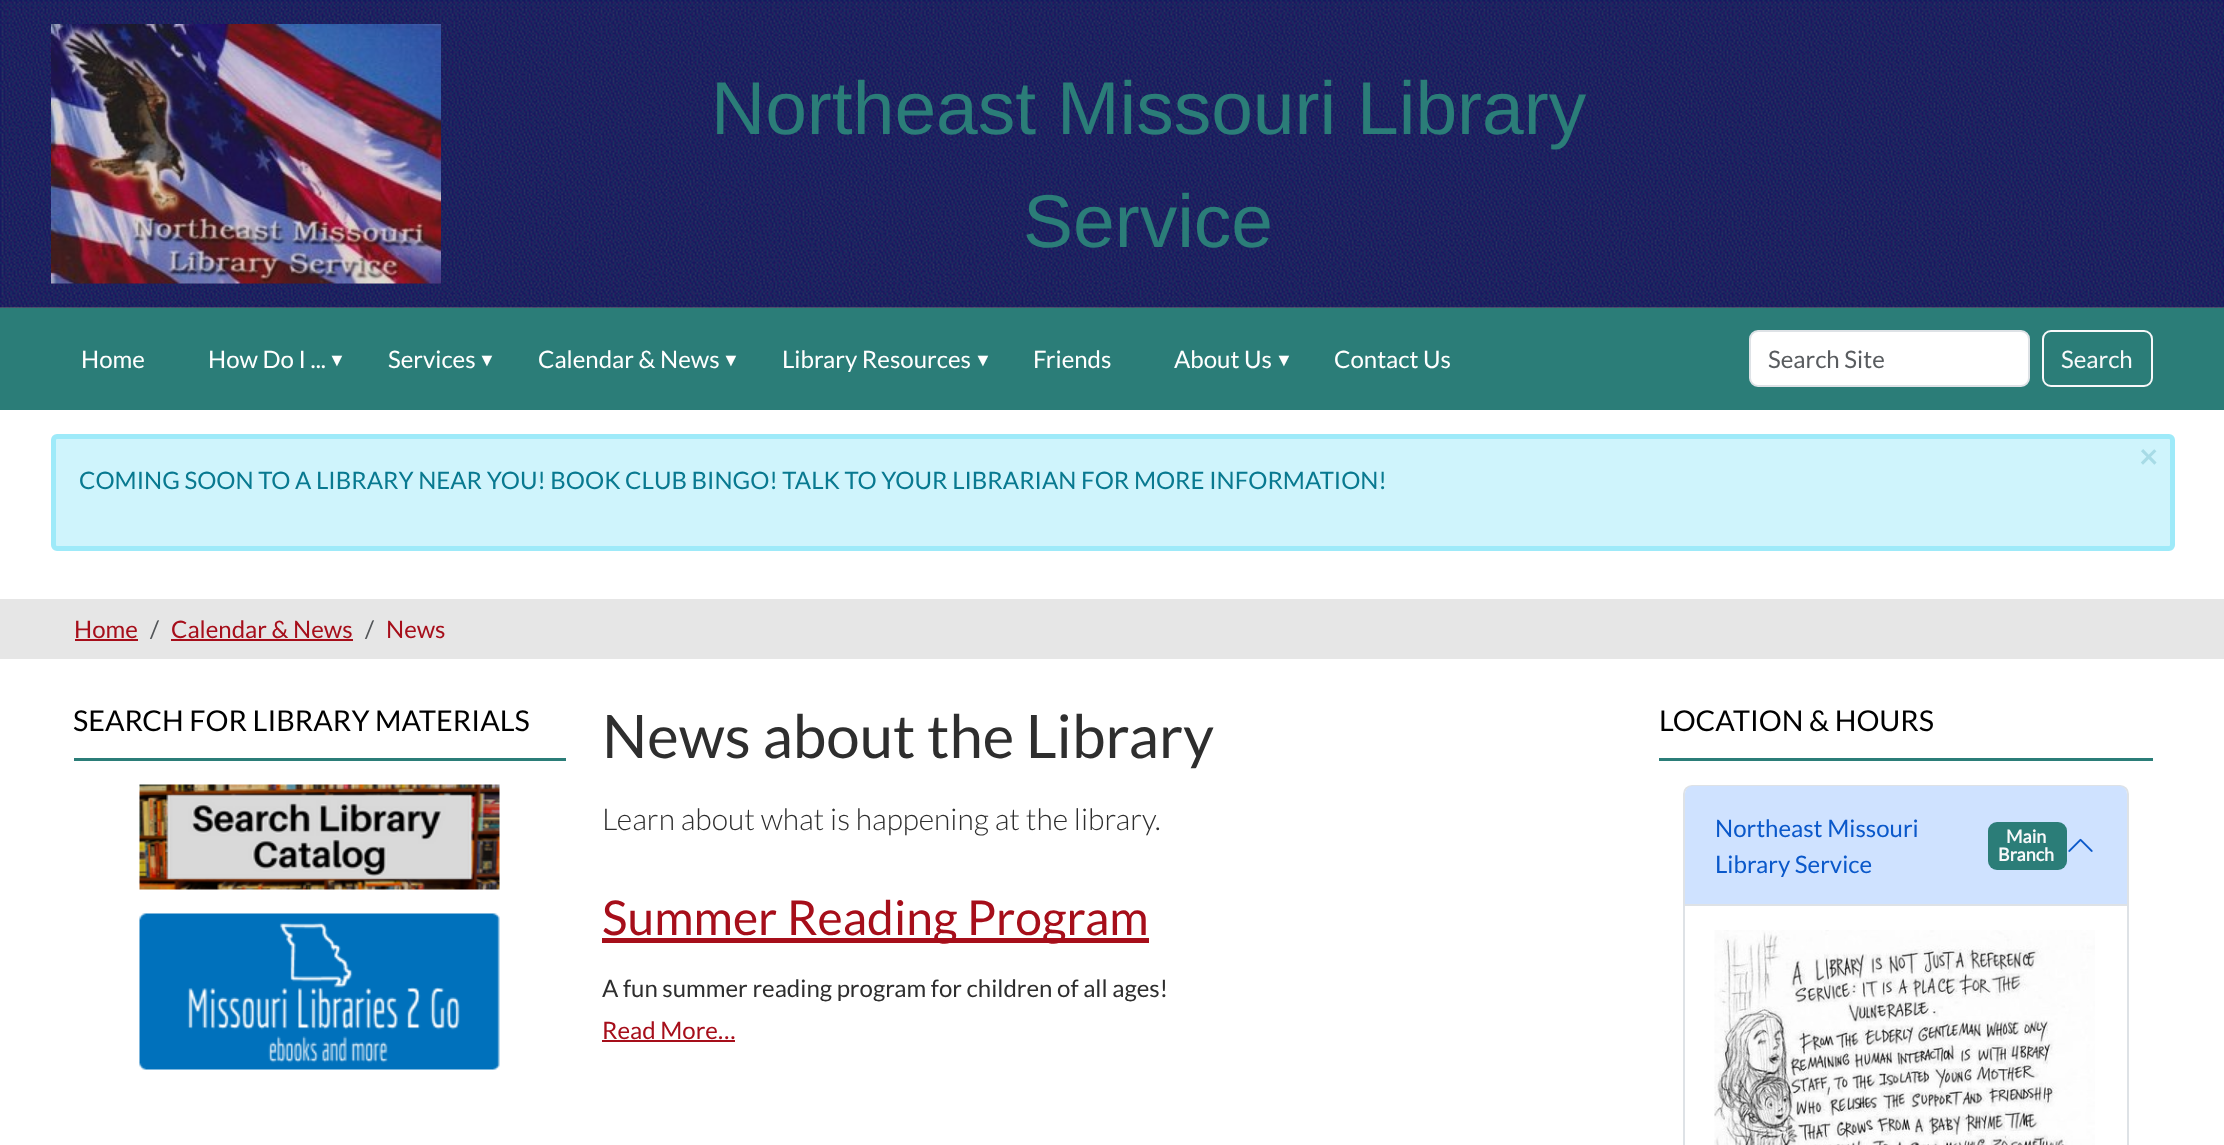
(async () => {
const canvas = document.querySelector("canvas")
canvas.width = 2224
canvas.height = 1145
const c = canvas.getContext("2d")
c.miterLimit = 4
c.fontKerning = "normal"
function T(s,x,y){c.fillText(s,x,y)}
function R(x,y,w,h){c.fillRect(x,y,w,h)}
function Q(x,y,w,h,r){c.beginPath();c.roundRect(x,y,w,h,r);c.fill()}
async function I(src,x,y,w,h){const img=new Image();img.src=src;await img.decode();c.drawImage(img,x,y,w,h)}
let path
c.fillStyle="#fff"
R(0,0,2224,1145)
c.fillStyle="#787878"
R(0,307,2224,1)
await I("1.png",0,0,2224,308)
await I("2.png",51,24,390,260)
c.font="75px Liberation Sans"
c.fillStyle="#2b7d78"
T("Northeast Missouri Library",711,134)
T("Service",1023,247)
R(0,308,2224,102)
c.font="24px Lato"
c.fillStyle="#fff"
T("Home",81,368)
T("How Do I ...",208,368)
c.font="18px Liberation Sans"
T("▼",328,366)
c.font="24px Lato"
T("Services",388,368)
c.font="18px Liberation Sans"
T("▼",478,366)
c.font="24px Lato"
T("Calendar & News",538,368)
c.font="18px Liberation Sans"
T("▼",722,366)
c.font="24px Lato"
T("Library Resources",782,368)
c.font="18px Liberation Sans"
T("▼",974,366)
c.font="24px Lato"
T("Friends",1033,368)
T("About Us",1174,368)
c.font="18px Liberation Sans"
T("▼",1275,366)
c.font="24px Lato"
T("Contact Us",1334,368)
c.beginPath()
c.roundRect(1750,331,279,55,8)
c.fill()
c.strokeStyle="#dee2e6"
c.lineWidth=2
c.stroke()
c.fillStyle="#595c5f"
T("Search Site",1768,368)
c.beginPath()
c.roundRect(2043,331,109,55,8)
c.strokeStyle="#f8f9fa"
c.stroke()
c.fillStyle="#f8f9fa"
T("Search",2061,368)
c.fillStyle="#cff4fc"
c.beginPath()
c.roundRect(53.5,436.5,2119,112,3.5)
c.fill()
c.strokeStyle="#9eeaf9"
c.lineWidth=5
c.stroke()
c.font="bold 32px Lato"
c.fillStyle="#a7dbe6"
T("×",2139,468)
c.font="24px Lato"
c.fillStyle="#087990"
T("COMING SOON TO A LIBRARY NEAR YOU! BOOK CLUB BINGO! TALK TO YOUR LIBRARIAN FOR MORE INFORMATION!",79,489)
c.fillStyle="#e6e6e6"
R(0,599,2224,60)
c.fillStyle="#a60e1a"
T("Home",74,638)
R(75,639,63,2)
c.fillStyle="#525558"
T("/",150,638)
c.fillStyle="#a60e1a"
T("Calendar & News",171,638)
R(171,639,182,2)
c.fillStyle="#525558"
T("/",365,638)
c.fillStyle="#a60e1a"
T("News",386,638)
c.fillStyle="#2b7d78"
R(74,758,492,3)
c.font="28.75px Lato"
c.fillStyle="#000"
T("SEARCH FOR LIBRARY MATERIALS",73,731)
await I("3.png",139,784,361,106)
await I("4.png",139,913,361,157)
c.font="60px Lato"
c.fillStyle="#2e2e2e"
T("News about the Library",602,758)
c.font="300 30px Lato"
T("Learn about what is happening at the library.",602,830)
c.fillStyle="#a60e1a"
R(602,938,547,5)
c.font="48px Lato"
T("Summer Reading Program",602,935)
c.font="24px Lato"
c.fillStyle="#2e2e2e"
T("A fun summer reading program for children of all ages!",602,997)
c.fillStyle="#a60e1a"
T("Read More…",602,1039)
R(602,1040,133,2)
c.fillStyle="#2b7d78"
R(1659,758,494,3)
c.font="28.75px Lato"
c.fillStyle="#000"
T("LOCATION & HOURS",1659,731)
path = new Path2D("M1692 786h428c4.5 0 8 3.5 8 8v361h-444v-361c0-4.5 3.5-8 8-8z")
c.strokeStyle="#dee2e6"
c.lineWidth=2
c.stroke(path)
c.fillStyle="#cfe2ff"
c.beginPath()
c.roundRect(1685,786,442,120,[8,8,0,0])
c.fill()
c.fillStyle="#dee2e6"
R(1685,904,442,2)
c.font="24px Lato"
c.fillStyle="#0a58ca"
T("Northeast Missouri",1715,837)
c.fillStyle="#2b7d78"
Q(1988,822,79,48,9)
c.font="bold 18px Lato"
c.fillStyle="#f8f9fa"
T("Main",2006,843)
T("Branch",1998,861)
await I("5.png",2068,838,25,14)
c.font="24px Lato"
c.fillStyle="#0a58ca"
T("Library Service",1715,873)
await I("6.png",1714,930,381,215)
})()
